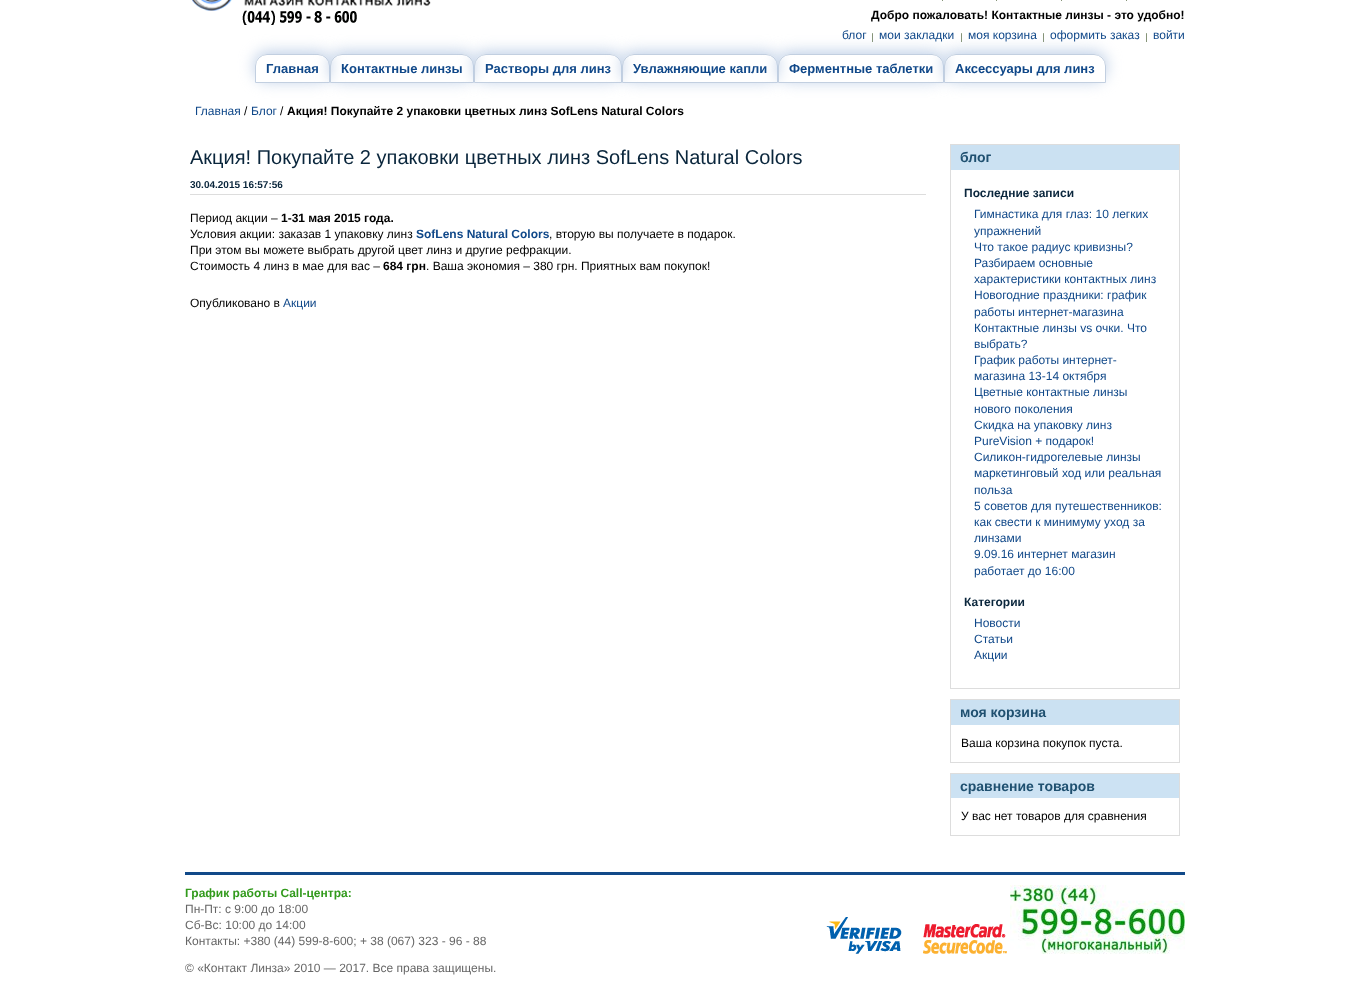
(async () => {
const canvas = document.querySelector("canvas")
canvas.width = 1370
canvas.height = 986
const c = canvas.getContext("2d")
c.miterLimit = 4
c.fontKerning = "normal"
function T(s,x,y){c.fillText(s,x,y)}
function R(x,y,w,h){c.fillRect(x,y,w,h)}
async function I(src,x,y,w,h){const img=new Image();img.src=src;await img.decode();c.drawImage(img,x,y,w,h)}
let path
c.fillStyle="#fff"
R(0,0,1370,986)
await I("1.png",192,0,239,25)
c.fillStyle="#869478"
R(942,0,1,1)
R(996,0,1,1)
R(1061,0,1,1)
R(1126,0,1,1)
c.font="bold 12px Liberation Sans"
c.fillStyle="#000"
T("Добро пожаловать! Контактные линзы - это удобно!",871,19)
c.font="12px Liberation Sans"
c.fillStyle="#104889"
T("блог",842,39)
await I("2.png",872,33,1,9)
T("мои закладки",879,39)
await I("2.png",961,33,1,9)
T("моя корзина",968,39)
await I("2.png",1043,33,1,9)
T("оформить заказ",1050,39)
await I("2.png",1146,33,1,9)
T("войти",1153,39)
c.save()
path = new Path2D("M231 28h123v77h-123zm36 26h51c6.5 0 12 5.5 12 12v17h-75v-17c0-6.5 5.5-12 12-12z")
c.clip(path,"evenodd")
c.fillStyle="#bacce5"
c.filter="blur(7.5px)"
c.beginPath()
c.roundRect(255,52,75,29,12)
c.fill()
c.filter="none"
c.restore()
c.beginPath()
c.roundRect(255.5,54.5,74,28,[11.5,11.5,0,0])
c.strokeStyle="#c2cfe0"
c.stroke()
c.font="bold 13px Liberation Sans"
T("Главная",266,73)
c.save()
path = new Path2D("M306 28h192v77h-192zm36 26h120c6.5 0 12 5.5 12 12v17h-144v-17c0-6.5 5.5-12 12-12z")
c.clip(path,"evenodd")
c.fillStyle="#bacce5"
c.filter="blur(7.5px)"
c.beginPath()
c.roundRect(330,52,144,29,12)
c.fill()
c.filter="none"
c.restore()
c.beginPath()
c.roundRect(330.5,54.5,143,28,[11.5,11.5,0,0])
c.stroke()
T("Контактные линзы",341,73)
c.save()
path = new Path2D("M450 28h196v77h-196zm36 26h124c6.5 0 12 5.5 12 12v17h-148v-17c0-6.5 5.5-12 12-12z")
c.clip(path,"evenodd")
c.fillStyle="#bacce5"
c.filter="blur(7.5px)"
c.beginPath()
c.roundRect(474,52,148,29,12)
c.fill()
c.filter="none"
c.restore()
c.beginPath()
c.roundRect(474.5,54.5,147,28,[11.5,11.5,0,0])
c.stroke()
T("Растворы для линз",485,73)
c.save()
path = new Path2D("M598 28h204v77h-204zm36 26h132c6.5 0 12 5.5 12 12v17h-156v-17c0-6.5 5.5-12 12-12z")
c.clip(path,"evenodd")
c.fillStyle="#bacce5"
c.filter="blur(7.5px)"
c.beginPath()
c.roundRect(622,52,156,29,12)
c.fill()
c.filter="none"
c.restore()
c.beginPath()
c.roundRect(622.5,54.5,155,28,[11.5,11.5,0,0])
c.stroke()
T("Увлажняющие капли",633,73)
c.save()
path = new Path2D("M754 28h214v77h-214zm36 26h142c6.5 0 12 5.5 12 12v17h-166v-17c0-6.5 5.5-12 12-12z")
c.clip(path,"evenodd")
c.fillStyle="#bacce5"
c.filter="blur(7.5px)"
c.beginPath()
c.roundRect(778,52,166,29,12)
c.fill()
c.filter="none"
c.restore()
c.beginPath()
c.roundRect(778.5,54.5,165,28,[11.5,11.5,0,0])
c.stroke()
T("Ферментные таблетки",789,73)
c.save()
path = new Path2D("M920 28h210v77h-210zm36 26h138c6.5 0 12 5.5 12 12v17h-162v-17c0-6.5 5.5-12 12-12z")
c.clip(path,"evenodd")
c.fillStyle="#bacce5"
c.filter="blur(7.5px)"
c.beginPath()
c.roundRect(944,52,162,29,12)
c.fill()
c.filter="none"
c.restore()
c.beginPath()
c.roundRect(944.5,54.5,161,28,[11.5,11.5,0,0])
c.stroke()
T("Аксессуары для линз",955,73)
c.font="12px Liberation Sans"
T("Главная",195,115)
c.fillStyle="#000"
T("/",244,115)
c.fillStyle="#104889"
T("Блог",251,115)
c.fillStyle="#000"
T("/",280,115)
c.font="bold 12px Liberation Sans"
T("Акция! Покупайте 2 упаковки цветных линз SofLens Natural Colors",287,115)
c.fillStyle="#ddd"
R(190,194,736,1)
c.font="20px Liberation Sans"
c.fillStyle="#0a263c"
T("Акция! Покупайте 2 упаковки цветных линз SofLens Natural Colors",190,164)
c.font="bold 10px Liberation Sans"
T("30.04.2015 16:57:56",190,188)
c.font="12px Liberation Sans"
c.fillStyle="#000"
T("Период акции –",190,222)
c.font="bold 12px Liberation Sans"
T("1-31 мая 2015 года.",281,222)
c.font="12px Liberation Sans"
T("Условия акции: заказав 1 упаковку линз",190,238)
c.font="bold 12px Liberation Sans"
c.fillStyle="#104889"
T("SofLens Natural Colors",416,238)
c.font="12px Liberation Sans"
c.fillStyle="#000"
T(", вторую вы получаете в подарок.",549,238)
T("При этом вы можете выбрать другой цвет линз и другие рефракции.",190,254)
T("Стоимость 4 линз в мае для вас –",190,270)
c.font="bold 12px Liberation Sans"
T("684 грн",383,270)
c.font="12px Liberation Sans"
T(". Ваша экономия – 380 грн. Приятных вам покупок!",426,270)
T("Опубликовано в",190,307)
c.fillStyle="#104889"
T("Акции",283,307)
c.strokeStyle="#ddd"
c.strokeRect(950.5,144.5,229,544)
c.fillStyle="#cbe1f2"
R(951,145,228,25)
c.font="bold 14px Liberation Sans"
c.fillStyle="#1f5070"
T("блог",960,162)
c.font="bold 12px Liberation Sans"
c.fillStyle="#0a263c"
T("Последние записи",964,197)
c.font="12px Liberation Sans"
c.fillStyle="#104889"
T("Гимнастика для глаз: 10 легких",974,218)
T("упражнений",974,235)
T("Что такое радиус кривизны?",974,251)
T("Разбираем основные",974,267)
T("характеристики контактных линз",974,283)
T("Новогодние праздники: график",974,299)
T("работы интернет-магазина",974,316)
T("Контактные линзы vs очки. Что",974,332)
T("выбрать?",974,348)
T("График работы интернет-",974,364)
T("магазина 13-14 октября",974,380)
T("Цветные контактные линзы",974,396)
T("нового поколения",974,413)
T("Скидка на упаковку линз",974,429)
T("PureVision + подарок!",974,445)
T("Силикон-гидрогелевые линзы",974,461)
T("маркетинговый ход или реальная",974,477)
T("польза",974,494)
T("5 советов для путешественников:",974,510)
T("как свести к минимуму уход за",974,526)
T("линзами",974,542)
T("9.09.16 интернет магазин",974,558)
T("работает до 16:00",974,575)
c.font="bold 12px Liberation Sans"
c.fillStyle="#0a263c"
T("Категории",964,606)
c.font="12px Liberation Sans"
c.fillStyle="#104889"
T("Новости",974,627)
T("Статьи",974,643)
T("Акции",974,659)
c.strokeRect(950.5,699.5,229,63)
c.fillStyle="#cbe1f2"
R(951,700,228,25)
c.font="bold 14px Liberation Sans"
c.fillStyle="#1f5070"
T("моя корзина",960,717)
c.font="12px Liberation Sans"
c.fillStyle="#000"
T("Ваша корзина покупок пуста.",961,747)
c.strokeRect(950.5,773.5,229,62)
c.fillStyle="#cce2f3"
R(951,774,228,24)
c.font="bold 14px Liberation Sans"
c.fillStyle="#1f5070"
T("сравнение товаров",960,791)
c.font="12px Liberation Sans"
c.fillStyle="#000"
T("У вас нет товаров для сравнения",961,820)
c.fillStyle="#114989"
R(185,872,1000,3)
c.font="bold 12px Liberation Sans"
c.fillStyle="#329a1c"
T("График работы Call-центра:",185,897)
c.font="12px Liberation Sans"
c.fillStyle="#666"
T("Пн-Пт: с 9:00 до 18:00",185,913)
T("Сб-Вс: 10:00 до 14:00",185,929)
T("Контакты: +380 (44) 599-8-600; + 38 (067) 323 - 96 - 88",185,945)
T("© «Контакт Линза» 2010 — 2017. Все права защищены.",185,972)
await I("3.png",826,917,181,37)
await I("4.png",1010,885,175,69)
})()
